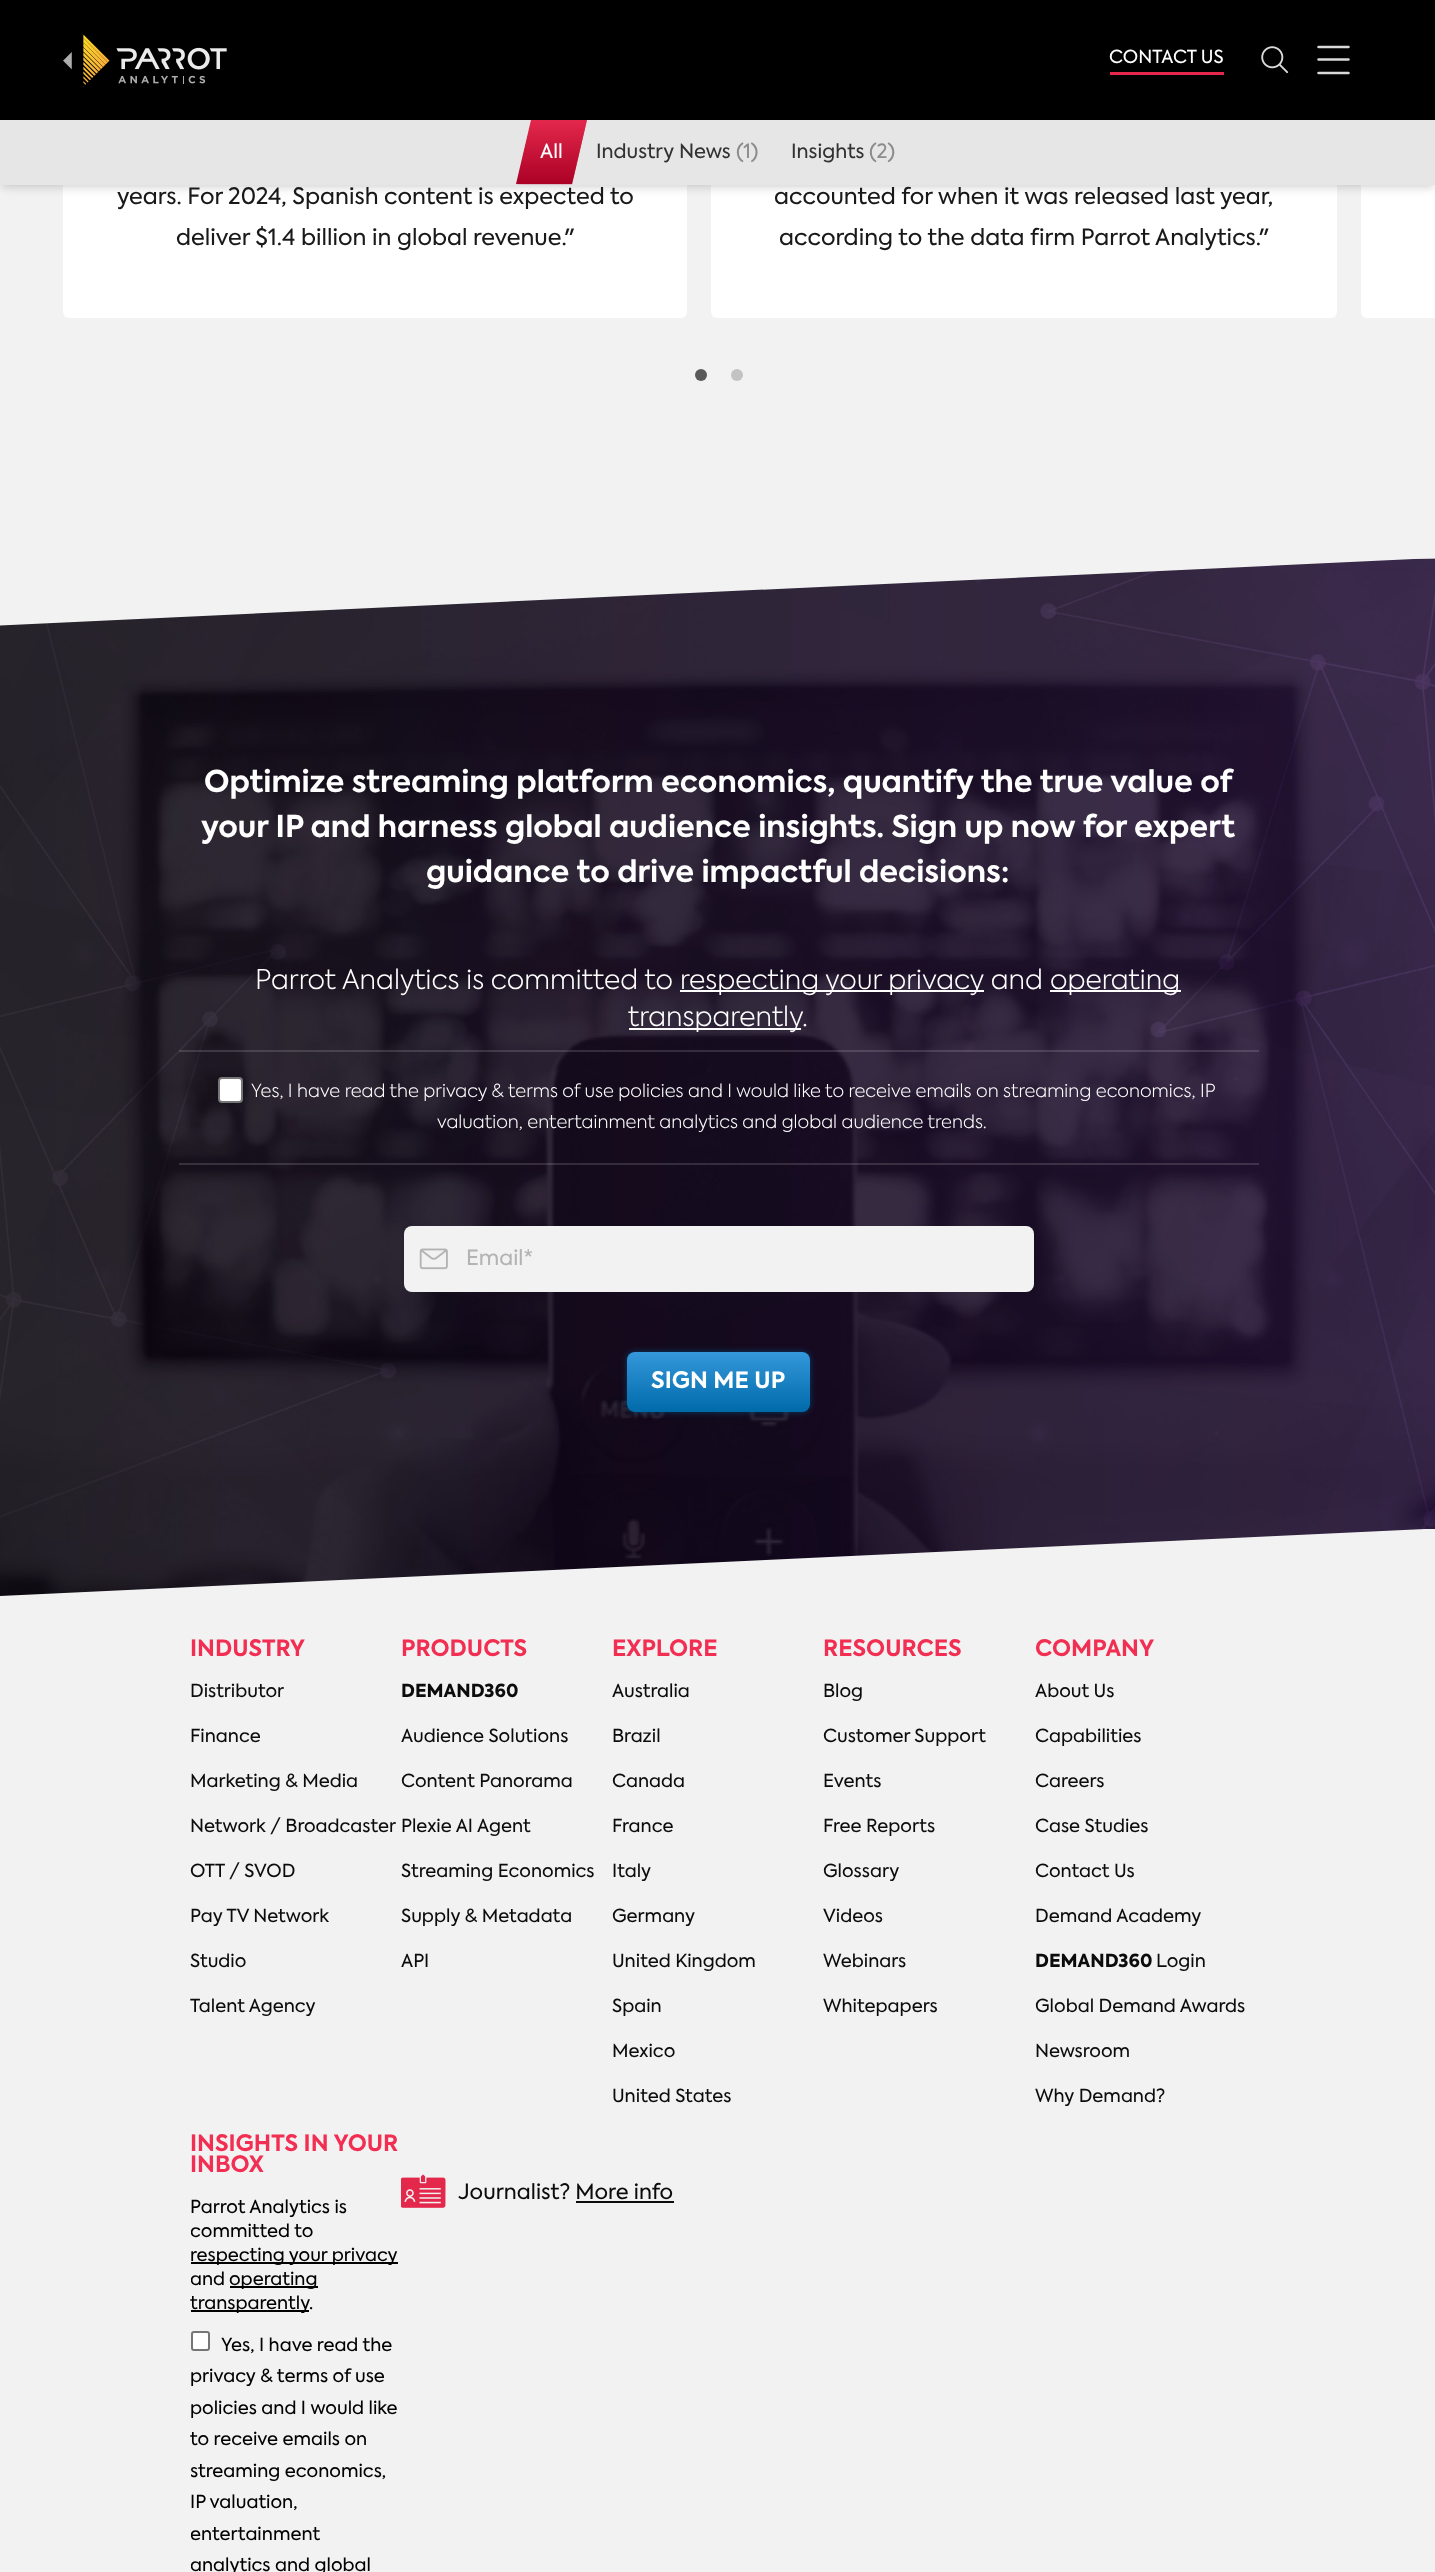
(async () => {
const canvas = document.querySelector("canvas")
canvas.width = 1435
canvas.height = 2572
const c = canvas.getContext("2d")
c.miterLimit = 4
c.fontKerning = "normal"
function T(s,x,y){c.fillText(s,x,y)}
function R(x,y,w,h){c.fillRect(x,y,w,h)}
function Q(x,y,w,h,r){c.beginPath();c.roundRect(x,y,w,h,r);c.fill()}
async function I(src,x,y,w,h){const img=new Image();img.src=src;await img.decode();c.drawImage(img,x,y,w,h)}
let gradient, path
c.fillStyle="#f2f2f2"
R(0,0,1435,2572)
c.fillStyle="#fff"
Q(63,-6,624,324,6)
Q(711,-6,626,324,6)
path = new Path2D("M1367-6h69v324h-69c-3.5 0-6-2.5-6-6v-312c0-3.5 2.5-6 6-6z")
c.fill(path)
c.fillStyle="#000"
R(0,0,1435,120)
await I("1.png",63,35,47,52)
await I("2.png",116,47,111,37)
c.fillStyle="#e3284c"
R(1110,72,114,3)
c.font="18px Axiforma"
c.fillStyle="#fff"
T("CONTACT US",1109,63)
await I("3.png",1261,46,28,28)
path = new Path2D("M1318.5 47h30m-30 12.5h30m-30 13.5h30")
c.strokeStyle="#d9d9d9"
c.lineWidth=2.5
c.lineCap="round"
c.stroke(path)
c.fillStyle="#0000000f"
c.filter="blur(3px)"
c.beginPath()
c.rect(2,125,1432,61)
c.fill()
c.filter="none"
c.fillStyle="#0000001a"
c.filter="blur(4.5px)"
c.beginPath()
c.rect(2,128,1432,61)
c.fill()
c.filter="none"
c.fillStyle="#e6e6e6"
R(0,120,1435,65)
c.save()
path = new Path2D("M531.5 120h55.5l-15 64.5h-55.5z")
c.clip(path)
c.fillStyle="#aa0024a8"
c.filter="blur(4px)"
c.beginPath()
c.rect(516,120,71,65)
c.fill()
c.filter="none"
c.restore()
gradient = c.createLinearGradient(551,120,551,185)
gradient.addColorStop(0,"#e3284c")
gradient.addColorStop(1,"#aa0024")
c.fillStyle = gradient
path = new Path2D("M531 120l-15 64h56l15-64z")
c.fill(path)
c.font="19.5px Axiforma"
c.fillStyle="#fff"
T("All",540,158)
c.fillStyle="#323232"
T("Industry News",596,158)
c.fillStyle="#8c8c8c"
T("(1)",736,158)
c.fillStyle="#323232"
T("Insights",791,158)
c.fillStyle="#8c8c8c"
T("(2)",869,158)
c.font="22.5px Axiforma"
c.fillStyle="#191919"
T("years. For 2024, Spanish content is expected to",117,204)
T("deliver $1.4 billion in global revenue.\"",176,245)
T("accounted for when it was released last year,",774,204)
T("according to the data firm Parrot Analytics.\"",779,245)
c.fillStyle="#5a5a5a"
c.beginPath()
c.arc(701,375,6,0,7)
c.fill()
c.fillStyle="#c3c3c3"
c.beginPath()
c.arc(737,375,6,0,7)
c.fill()
await I("4.png",0,558,1435,1038)
c.font="bold 30px Axiforma"
c.fillStyle="#fff"
T("Optimize streaming platform economics, quantify the true value of",204,792)
T("your IP and harness global audience insights. Sign up now for expert",201,837)
T("guidance to drive impactful decisions:",426,882)
c.font="300 27px Axiforma"
T("Parrot Analytics is committed to",255,989)
R(680,990,304,2)
T("respecting your privacy and",680,989)
R(1050,990,131,2)
T("operating",1050,989)
R(629,1028,172,2)
T("transparently",628,1026)
T(".",802,1026)
c.fillStyle="#ffffff24"
R(179,1050,1080,2)
R(179,1163,1080,2)
c.fillStyle="#fff"
c.beginPath()
c.roundRect(219,1078,23,24,3)
c.fill()
c.strokeStyle="#767676"
c.lineWidth=2
c.stroke()
c.font="300 18px Axiforma"
T("Yes, I have read the privacy & terms of use policies and I would like to receive emails on streaming economics, IP",251,1097)
T("valuation, entertainment analytics and global audience trends.",437,1128)
c.fillStyle="#f2f2f2"
Q(404,1226,630,66,8)
await I("5.png",419,1248,29,22)
c.font="21px Axiforma"
c.fillStyle="#b3b3b3"
T("Email*",466,1265)
c.fillStyle="#006aa982"
c.filter="blur(3px)"
c.beginPath()
c.roundRect(627,1352,183,60,8)
c.fill()
c.filter="none"
gradient = c.createLinearGradient(719,1352,719,1412)
gradient.addColorStop(0,"#3498db")
gradient.addColorStop(1,"#006aa9")
c.fillStyle = gradient
Q(627,1352,183,60,8)
c.font="bold 22.5px Axiforma"
c.fillStyle="#fff"
T("SIGN ME UP",651,1388)
c.fillStyle="#f2f2f2"
path = new Path2D("M0 1596v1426h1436v-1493h-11z")
c.fill(path)
c.fillStyle="#f22e52"
T("INDUSTRY",190,1656)
c.font="18px Axiforma"
c.fillStyle="#0c0c0c"
T("Distributor",190,1697)
T("Finance",190,1742)
T("Marketing & Media",190,1787)
T("Network / Broadcaster",190,1832)
T("OTT / SVOD",190,1877)
T("Pay TV Network",190,1922)
T("Studio",190,1967)
T("Talent Agency",190,2012)
c.font="bold 22.5px Axiforma"
c.fillStyle="#f22e52"
T("PRODUCTS",401,1656)
c.font="800 18px Axiforma"
c.fillStyle="#0c0c0c"
T("DEMAND360",401,1697)
c.font="18px Axiforma"
T("Audience Solutions",401,1742)
T("Content Panorama",401,1787)
T("Plexie AI Agent",401,1832)
T("Streaming Economics",401,1877)
T("Supply & Metadata",401,1922)
T("API",401,1967)
c.font="bold 22.5px Axiforma"
c.fillStyle="#f22e52"
T("EXPLORE",612,1656)
c.font="18px Axiforma"
c.fillStyle="#0c0c0c"
T("Australia",612,1697)
T("Brazil",612,1742)
T("Canada",612,1787)
T("France",612,1832)
T("Italy",612,1877)
T("Germany",612,1922)
T("United Kingdom",612,1967)
T("Spain",612,2012)
T("Mexico",612,2057)
T("United States",612,2102)
c.font="bold 22.5px Axiforma"
c.fillStyle="#f22e52"
T("RESOURCES",823,1656)
c.font="18px Axiforma"
c.fillStyle="#0c0c0c"
T("Blog",823,1697)
T("Customer Support",823,1742)
T("Events",823,1787)
T("Free Reports",823,1832)
T("Glossary",823,1877)
T("Videos",823,1922)
T("Webinars",823,1967)
T("Whitepapers",823,2012)
c.font="bold 22.5px Axiforma"
c.fillStyle="#f22e52"
T("COMPANY",1035,1656)
c.font="18px Axiforma"
c.fillStyle="#0c0c0c"
T("About Us",1035,1697)
T("Capabilities",1035,1742)
T("Careers",1035,1787)
T("Case Studies",1035,1832)
T("Contact Us",1035,1877)
T("Demand Academy",1035,1922)
c.font="800 18px Axiforma"
T("DEMAND360",1035,1967)
c.font="18px Axiforma"
T("Login",1156,1967)
T("Global Demand Awards",1035,2012)
T("Newsroom",1035,2057)
T("Why Demand?",1035,2102)
c.font="bold 22.5px Axiforma"
c.fillStyle="#f22e52"
T("INSIGHTS IN YOUR",190,2151)
T("INBOX",190,2172)
c.font="18px Axiforma"
c.fillStyle="#000"
T("Parrot Analytics is",190,2213)
c.save()
c.beginPath()
c.rect(191,2189,210,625)
c.clip()
T("committed to",190,2237)
c.restore()
R(191,2262,207,2)
T("respecting your privacy",190,2261)
c.save()
c.beginPath()
c.rect(191,2189,210,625)
c.clip()
T("and",190,2285)
c.restore()
R(230,2286,88,2)
T("operating",229,2285)
R(191,2310,118,2)
T("transparently",190,2309)
T(".",309,2309)
c.fillStyle="#fff"
c.beginPath()
c.roundRect(192,2332,17,18,2)
c.fill()
c.stroke()
c.fillStyle="#000"
T("Yes, I have read the",221,2351)
T("privacy & terms of use",190,2382)
T("policies and I would like",190,2414)
T("to receive emails on",190,2445)
c.save()
c.beginPath()
c.rect(191,2189,210,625)
c.clip()
T("streaming economics,",190,2477)
c.restore()
T("IP valuation,",190,2508)
c.save()
c.beginPath()
c.rect(191,2189,210,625)
c.clip()
T("entertainment",190,2540)
T("analytics and global",190,2571)
c.restore()
await I("6.png",401,2174,45,34)
c.font="21px Axiforma"
c.fillStyle="#0c0c0c"
T("Journalist? More info",458,2199)
R(576,2201,98,2)
})()
